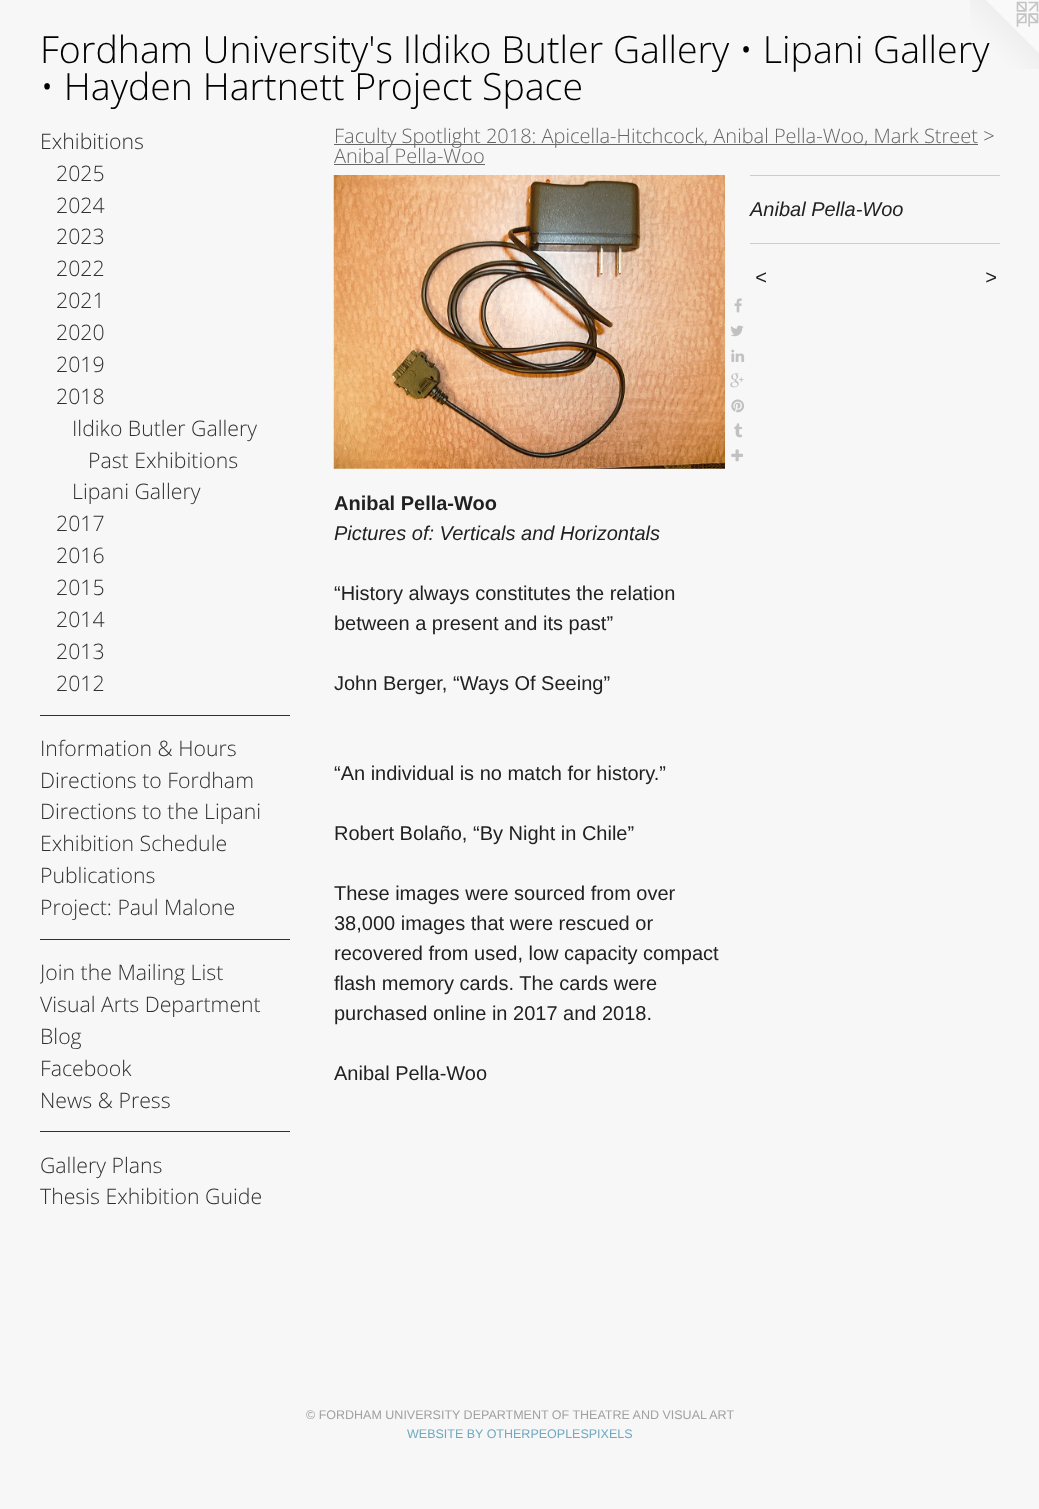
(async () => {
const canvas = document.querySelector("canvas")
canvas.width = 1039
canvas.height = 1509
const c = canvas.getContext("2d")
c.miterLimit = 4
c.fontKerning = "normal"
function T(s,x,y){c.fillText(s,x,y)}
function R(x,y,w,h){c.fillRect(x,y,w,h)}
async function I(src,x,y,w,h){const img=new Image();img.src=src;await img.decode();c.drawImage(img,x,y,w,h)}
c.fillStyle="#f7f7f7"
R(0,0,1039,1509)
c.font="300 37.5px Open Sans"
c.fillStyle="#000"
T("Fordham University's Ildiko Butler Gallery • Lipani Gallery",40,63)
T("• Hayden Hartnett Project Space",40,100)
await I("1.png",970,0,69,69)
c.font="300 21.25px Open Sans"
c.fillStyle="#303030"
T("Exhibitions",40,149)
T("2025",56,181)
T("2024",56,213)
T("2023",56,244)
T("2022",56,276)
T("2021",56,308)
T("2020",56,340)
T("2019",56,372)
T("2018",56,404)
T("Ildiko Butler Gallery",72,436)
T("Past Exhibitions",88,468)
T("Lipani Gallery",72,499)
T("2017",56,531)
T("2016",56,563)
T("2015",56,595)
T("2014",56,627)
T("2013",56,659)
T("2012",56,691)
R(40,715,250,1)
T("Information & Hours",40,756)
T("Directions to Fordham",40,788)
T("Directions to the Lipani",40,819)
T("Exhibition Schedule",40,851)
T("Publications",40,883)
T("Project: Paul Malone",40,915)
R(40,939,250,1)
c.save()
c.beginPath()
c.rect(40,956,250,33)
c.clip()
T("Join the Mailing List",40,980)
c.restore()
T("Visual Arts Department",40,1012)
T("Blog",40,1044)
T("Facebook",40,1076)
T("News & Press",40,1108)
R(40,1131,250,1)
T("Gallery Plans",40,1173)
T("Thesis Exhibition Guide",40,1204)
c.fillStyle="#666"
R(334,144,644,1)
c.font="300 20px Open Sans"
T("Faculty Spotlight 2018: Apicella-Hitchcock, Anibal Pella-Woo, Mark Street >",334,143)
T("Anibal Pella-Woo",334,163)
R(334,164,151,1)
await I("2.png",333,175,392,294)
await I("3.png",734,298,8,15)
await I("4.png",730,325,14,12)
await I("5.png",731,349,14,13)
await I("6.png",730,373,14,15)
await I("7.png",731,399,13,14)
await I("8.png",734,423,9,15)
await I("9.png",731,449,12,13)
c.fillStyle="#ccc"
R(750,175,250,1)
c.font="italic 20px Liberation Sans"
c.fillStyle="#212121"
T("Anibal Pella-Woo",750,216)
c.fillStyle="#ccc"
R(750,243,250,1)
c.letterSpacing="1px"
c.fillStyle="#212121"
T("<",755,284)
T(">",985,284)
c.letterSpacing="0px"
c.font="bold 20px Liberation Sans"
T("Anibal Pella-Woo",334,510)
c.font="italic 20px Liberation Sans"
T("Pictures of: Verticals and Horizontals",334,540)
c.font="20px Liberation Sans"
T("“History always constitutes the relation",334,600)
T("between a present and its past”",334,630)
T("John Berger, “Ways Of Seeing”",334,690)
T("“An individual is no match for history.”",334,780)
T("Robert Bolaño, “By Night in Chile”",334,840)
T("These images were sourced from over",334,900)
T("38,000 images that were rescued or",334,930)
T("recovered from used, low capacity compact",334,960)
T("flash memory cards. The cards were",334,990)
T("purchased online in 2017 and 2018.",334,1020)
T("Anibal Pella-Woo",334,1080)
c.font="12.5px Liberation Sans"
c.fillStyle="#a1a1a1"
T("© FORDHAM UNIVERSITY DEPARTMENT OF THEATRE AND VISUAL ART",306,1419)
c.fillStyle="#70a8c0"
T("WEBSITE BY OTHERPEOPLESPIXELS",407,1438)
})()
